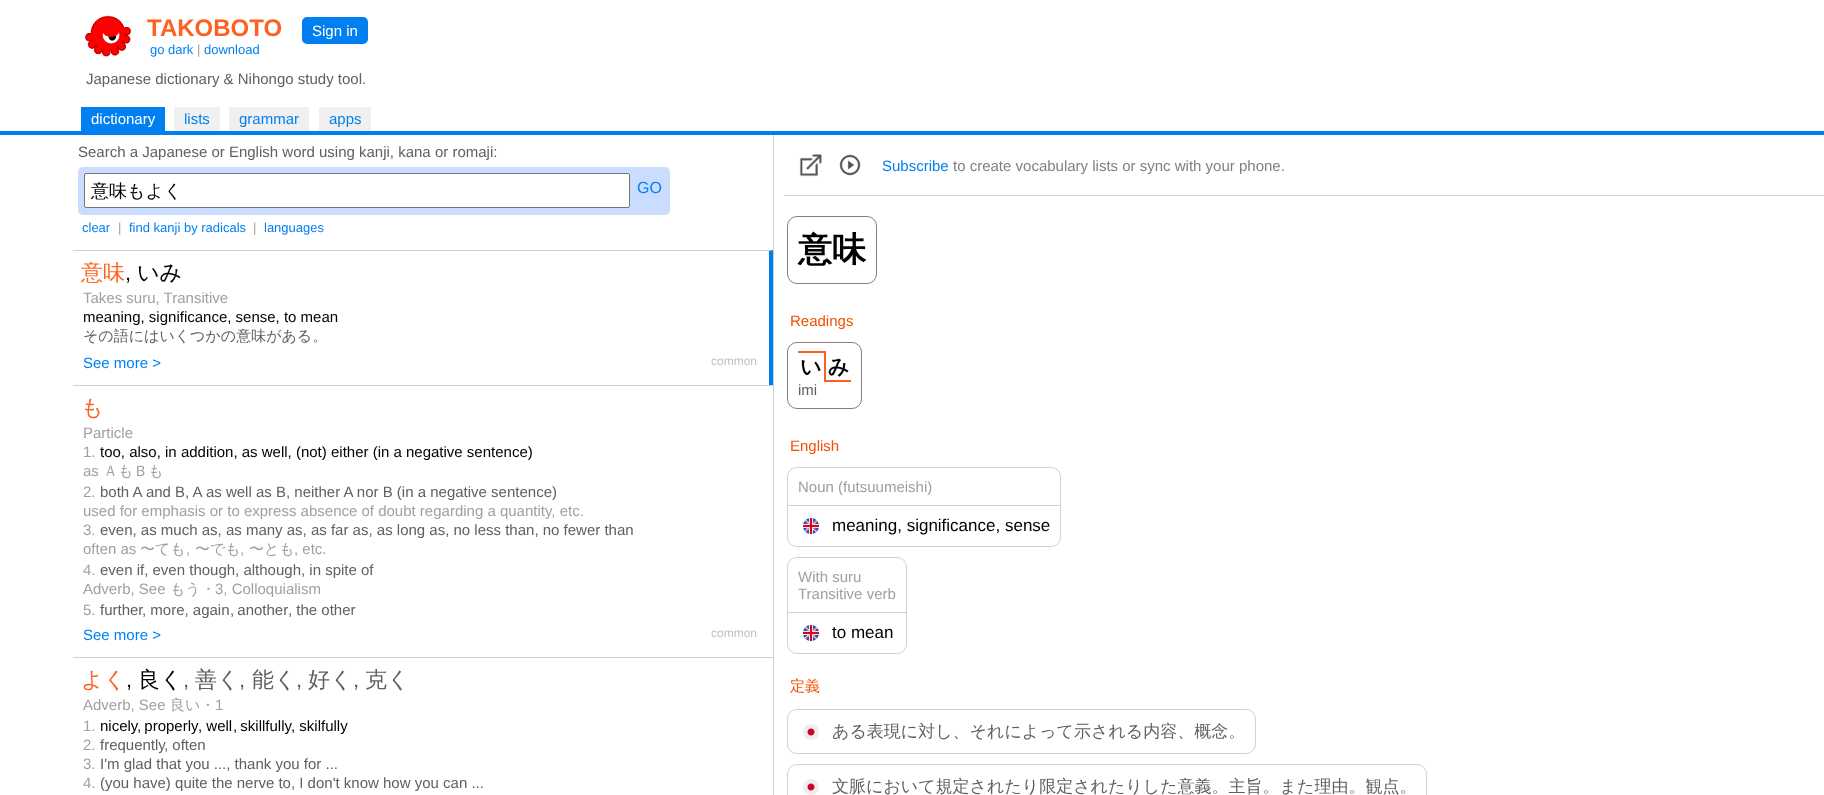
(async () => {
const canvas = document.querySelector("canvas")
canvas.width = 1824
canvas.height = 795
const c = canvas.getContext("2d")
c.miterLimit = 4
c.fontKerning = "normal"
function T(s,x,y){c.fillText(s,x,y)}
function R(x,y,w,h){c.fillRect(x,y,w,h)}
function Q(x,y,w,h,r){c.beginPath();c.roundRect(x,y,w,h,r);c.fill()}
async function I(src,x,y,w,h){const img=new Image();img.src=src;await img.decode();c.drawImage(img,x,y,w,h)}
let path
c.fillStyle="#fff"
R(0,0,1824,795)
c.fillStyle="#0080f0"
R(0,131,1824,4)
await I("1.png",84,15,48,42)
c.font="bold 24px Liberation Sans"
c.fillStyle="#ff6020"
T("TAKOBOTO",147,36)
c.font="13px Liberation Sans"
c.fillStyle="#0080f0"
T("go dark",150,54)
c.fillStyle="#a0a0a0"
T("|",197,54)
c.fillStyle="#0080f0"
T("download",204,54)
Q(302,17,66,27,5)
c.font="15px Liberation Sans"
c.fillStyle="#fff"
T("Sign in",312,36)
c.fillStyle="#606060"
T("Japanese dictionary & Nihongo study tool.",86,84)
c.fillStyle="#0080f0"
R(81,107,84,24)
c.fillStyle="#fff"
T("dictionary",91,124)
c.fillStyle="#f0f0f0"
R(174,107,46,24)
c.fillStyle="#0080f0"
T("lists",184,124)
c.fillStyle="#f0f0f0"
R(229,107,80,24)
c.fillStyle="#0080f0"
T("grammar",239,124)
c.fillStyle="#f0f0f0"
R(319,107,52,24)
c.fillStyle="#0080f0"
T("apps",329,124)
c.fillStyle="#606060"
T("Search a Japanese or English word using kanji, kana or romaji:",78,157)
c.fillStyle="#caddff"
Q(78,167,592,48,5)
c.fillStyle="#fff"
c.beginPath()
c.roundRect(84.5,173.5,545,34,1.5)
c.fill()
c.strokeStyle="#767676"
c.stroke()
c.font="500 18px WenQuanYi Zen Hei"
c.fillStyle="#000"
T("意味もよく",91,197)
c.font="16px Liberation Sans"
c.fillStyle="#0080ff"
T("GO",637,193)
c.font="13px Liberation Sans"
c.fillStyle="#0080f0"
T("clear",82,232)
c.fillStyle="#a0a0a0"
T("|",118,232)
c.fillStyle="#0080f0"
T("find kanji by radicals",129,232)
c.fillStyle="#a0a0a0"
T("|",253,232)
c.fillStyle="#0080f0"
T("languages",264,232)
c.fillStyle="#d0d0d0"
path = new Path2D("M73 250h700l-4 1h-696z")
c.fill(path)
c.fillStyle="#0080f0"
path = new Path2D("M773 250v135h-4v-134z")
c.fill(path)
c.font="500 22px WenQuanYi Zen Hei"
c.fillStyle="#ff6020"
T("意味",81,280)
c.font="22px Liberation Sans"
c.fillStyle="#000"
T(",",125,280)
c.font="500 22px WenQuanYi Zen Hei"
T("いみ",137,280)
c.font="15px Liberation Sans"
c.fillStyle="#a0a0a0"
T("Takes suru, Transitive",83,303)
c.fillStyle="#000"
T("meaning, significance, sense, to mean",83,322)
c.font="500 15px WenQuanYi Zen Hei"
c.fillStyle="#606060"
T("その語にはいくつかの意味がある。",83,341)
c.font="15px Liberation Sans"
c.fillStyle="#0080f0"
T("See more >",83,368)
c.font="12px Liberation Sans"
c.fillStyle="#c0c0c0"
T("common",711,365)
c.fillStyle="#d0d0d0"
R(73,385,700,1)
c.font="500 22px WenQuanYi Zen Hei"
c.fillStyle="#ff6020"
T("も",81,415)
c.font="15px Liberation Sans"
c.fillStyle="#a0a0a0"
T("Particle",83,438)
T("1.",83,457)
c.fillStyle="#000"
T("too, also, in addition, as well, (not) either (in a negative sentence)",100,457)
c.fillStyle="#a0a0a0"
T("as",83,476)
c.font="500 15px WenQuanYi Zen Hei"
T("ＡもＢも",103,476)
c.font="15px Liberation Sans"
T("2.",83,497)
c.fillStyle="#606060"
T("both A and B, A as well as B, neither A nor B (in a negative sentence)",100,497)
c.fillStyle="#a0a0a0"
T("used for emphasis or to express absence of doubt regarding a quantity, etc.",83,516)
T("3.",83,535)
c.fillStyle="#606060"
T("even, as much as, as many as, as far as, as long as, no less than, no fewer than",100,535)
c.fillStyle="#a0a0a0"
T("often as",83,554)
c.font="500 15px WenQuanYi Zen Hei"
T("〜ても",140,554)
c.font="15px Liberation Sans"
T(",",186,554)
c.font="500 15px WenQuanYi Zen Hei"
T("〜でも",195,554)
c.font="15px Liberation Sans"
T(",",240,554)
c.font="500 15px WenQuanYi Zen Hei"
T("〜とも",249,554)
c.font="15px Liberation Sans"
T(", etc.",294,554)
T("4.",83,575)
c.fillStyle="#606060"
T("even if, even though, although, in spite of",100,575)
c.fillStyle="#a0a0a0"
T("Adverb, See",83,594)
c.font="500 15px WenQuanYi Zen Hei"
T("もう・",170,594)
c.font="15px Liberation Sans"
T("3, Colloquialism",215,594)
T("5.",83,615)
c.fillStyle="#606060"
T("further",100,615)
T(", more, again",142,615)
c.wordSpacing="-1px"
T(", another",230,615)
c.wordSpacing="0px"
T(", the other",288,615)
c.fillStyle="#0080f0"
T("See more >",83,640)
c.font="12px Liberation Sans"
c.fillStyle="#c0c0c0"
T("common",711,637)
c.fillStyle="#d0d0d0"
R(73,657,700,1)
c.font="500 22px WenQuanYi Zen Hei"
c.fillStyle="#ff6020"
T("よく",81,687)
c.font="22px Liberation Sans"
c.fillStyle="#000"
T(",",126,687)
c.font="500 22px WenQuanYi Zen Hei"
T("良く",138,687)
c.font="22px Liberation Sans"
c.fillStyle="#606060"
T(",",183,687)
c.font="500 22px WenQuanYi Zen Hei"
T("善く",195,687)
c.font="22px Liberation Sans"
T(",",239,687)
c.font="500 22px WenQuanYi Zen Hei"
T("能く",252,687)
c.font="22px Liberation Sans"
T(",",296,687)
c.font="500 22px WenQuanYi Zen Hei"
T("好く",308,687)
c.font="22px Liberation Sans"
T(",",353,687)
c.font="500 22px WenQuanYi Zen Hei"
T("克く",365,687)
c.font="15px Liberation Sans"
c.fillStyle="#a0a0a0"
T("Adverb, See",83,710)
c.font="500 15px WenQuanYi Zen Hei"
T("良い・",170,710)
c.font="15px Liberation Sans"
T("1",215,710)
T("1.",83,731)
c.fillStyle="#000"
T("nicely",100,731)
c.wordSpacing="-1px"
T(", properly",137,731)
c.wordSpacing="0px"
T(", well",198,731)
c.wordSpacing="-1px"
T(", skillfully",233,731)
c.wordSpacing="0px"
T(", skilfully",291,731)
c.fillStyle="#a0a0a0"
T("2.",83,750)
c.fillStyle="#606060"
T("frequently",100,750)
T(", often",164,750)
c.fillStyle="#a0a0a0"
T("3.",83,769)
c.fillStyle="#606060"
T("I'm glad that you ..., thank you for ...",100,769)
c.fillStyle="#a0a0a0"
T("4.",83,788)
c.fillStyle="#606060"
T("(you have) quite the nerve to, I don't know how you can ...",100,788)
c.fillStyle="#d0d0d0"
R(773,135,1,660)
R(784,195,1040,1)
await I("2.png",799,154,23,23)
await I("3.png",839,154,22,22)
c.fillStyle="#0080f0"
T("Subscribe",882,171)
c.fillStyle="#808080"
T("to create vocabulary lists or sync with your phone.",953,171)
c.beginPath()
c.roundRect(787.5,216.5,89,67,9.5)
c.strokeStyle="#808080"
c.stroke()
c.font="bold 34px WenQuanYi Zen Hei"
c.fillStyle="#000"
T("意味",798,261)
c.font="15px Liberation Sans"
c.fillStyle="#f55000"
T("Readings",790,326)
c.beginPath()
c.roundRect(787.5,342.5,74,66,9.5)
c.stroke()
c.fillStyle="#ff6020"
R(798,351,28,2)
R(824,351,2,31)
c.font="bold 21px WenQuanYi Zen Hei"
c.fillStyle="#000"
T("い み",800,374)
c.fillStyle="#ff6020"
R(826,380,25,2)
c.font="15px Liberation Sans"
c.fillStyle="#606060"
T("imi",798,395)
c.fillStyle="#f55000"
T("English",790,451)
c.beginPath()
c.roundRect(787.5,467.5,273,79,9.5)
c.strokeStyle="#d0d0d0"
c.stroke()
c.fillStyle="#d0d0d0"
R(788,505,272,1)
c.fillStyle="#a0a0a0"
T("Noun (futsuumeishi)",798,492)
await I("4.png",803,518,16,16)
c.font="17px Liberation Sans"
c.fillStyle="#000"
T("meaning, significance, sense",832,531)
c.beginPath()
c.roundRect(787.5,557.5,119,96,9.5)
c.stroke()
c.fillStyle="#d0d0d0"
R(788,612,118,1)
c.font="15px Liberation Sans"
c.fillStyle="#a0a0a0"
T("With suru",798,582)
T("Transitive verb",798,599)
await I("4.png",803,625,16,16)
c.font="17px Liberation Sans"
c.fillStyle="#000"
T("to mean",832,638)
c.font="500 15px WenQuanYi Zen Hei"
c.fillStyle="#f55000"
T("定義",790,691)
c.beginPath()
c.roundRect(787.5,709.5,468,44,9.5)
c.stroke()
await I("5.png",803,724,16,16)
c.font="500 17px WenQuanYi Zen Hei"
c.fillStyle="#606060"
T("ある表現に対し、それによって示される内容、概念。",832,737)
c.beginPath()
c.roundRect(787.5,764.5,639,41,9.5)
c.stroke()
await I("5.png",803,779,16,16)
T("文脈において規定されたり限定されたりした意義。主旨。また理由。観点。",832,792)
})()
